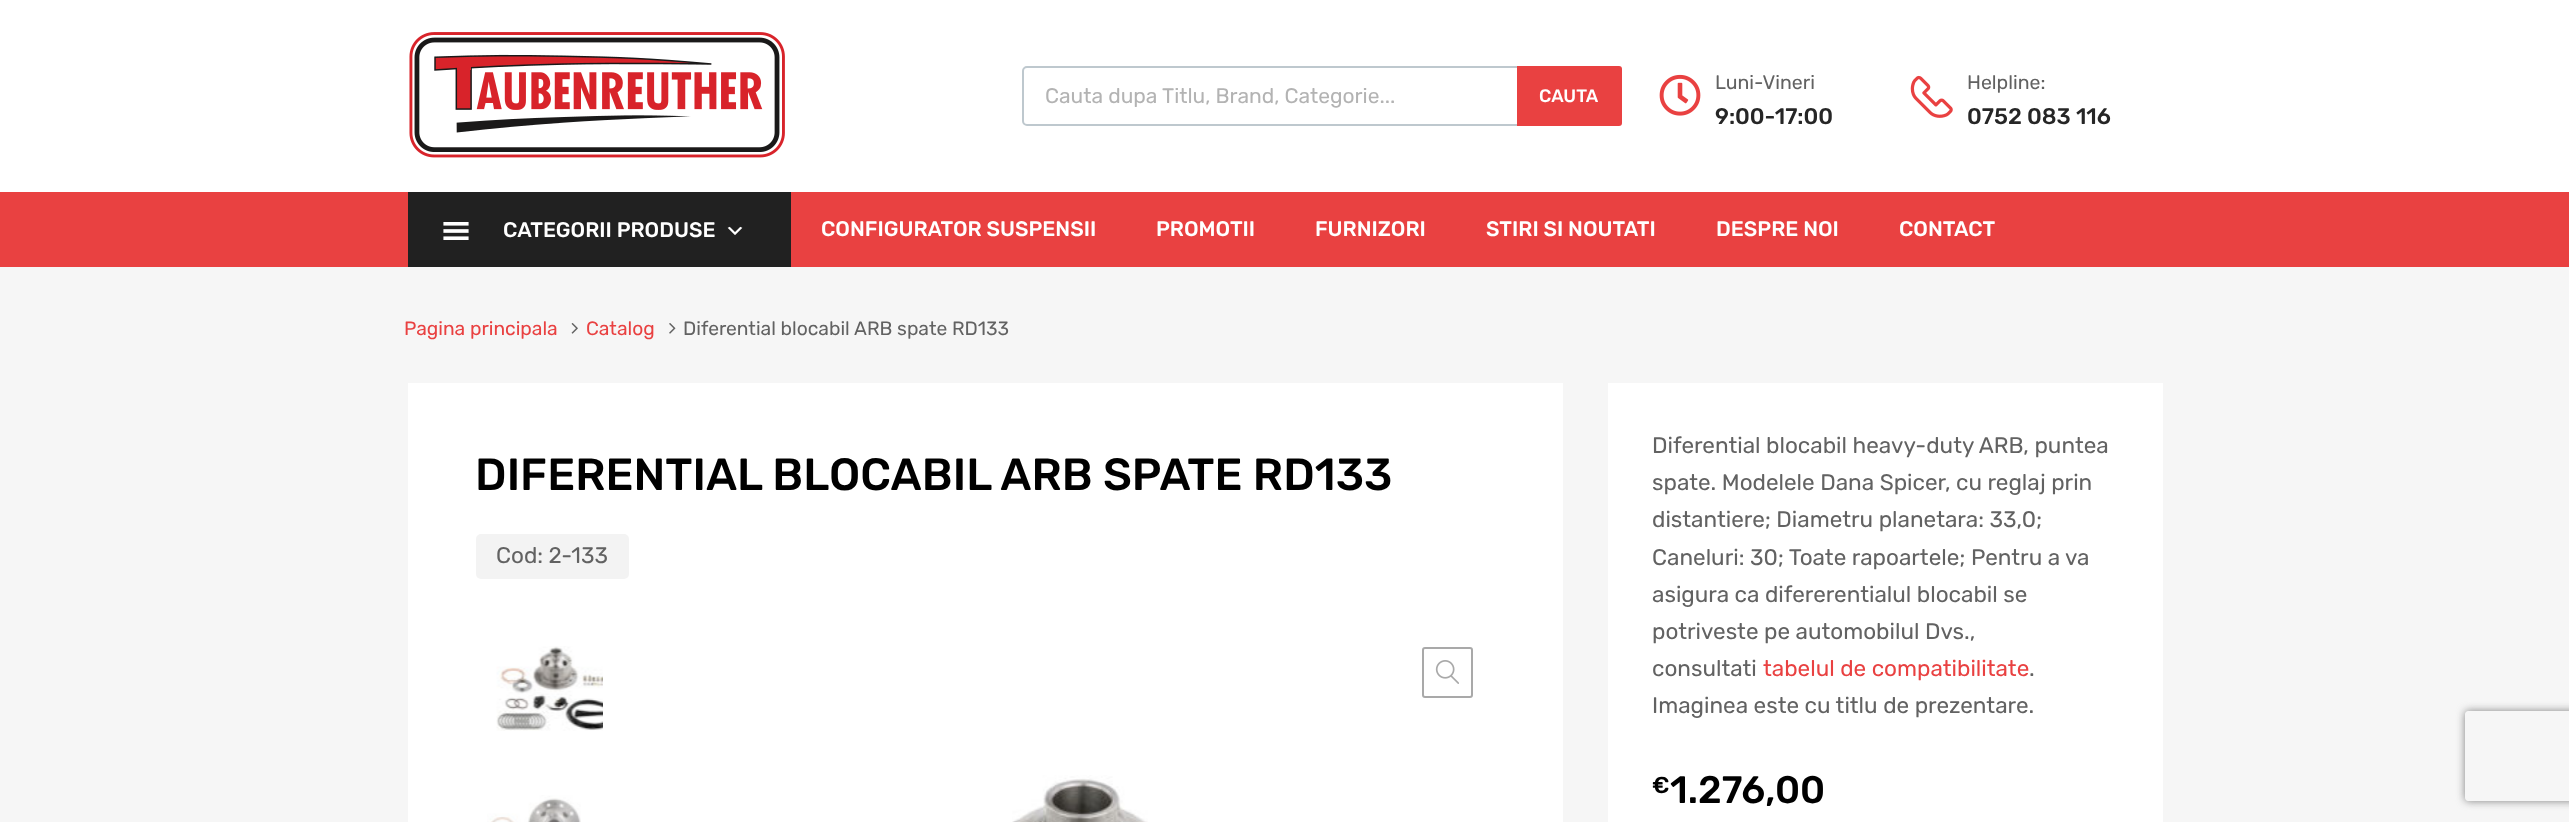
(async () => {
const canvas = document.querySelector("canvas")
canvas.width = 2569
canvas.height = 822
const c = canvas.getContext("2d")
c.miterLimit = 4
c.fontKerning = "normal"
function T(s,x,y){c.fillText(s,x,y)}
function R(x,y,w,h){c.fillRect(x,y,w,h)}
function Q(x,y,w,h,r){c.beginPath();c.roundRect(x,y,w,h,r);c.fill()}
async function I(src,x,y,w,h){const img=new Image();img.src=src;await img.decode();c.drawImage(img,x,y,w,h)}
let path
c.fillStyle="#f6f6f6"
R(0,0,2569,822)
c.fillStyle="#fff"
R(0,0,2569,192)
await I("1.png",409,32,376,126)
c.beginPath()
c.roundRect(1023,67,598,58,4)
c.strokeStyle="#bec8ce"
c.lineWidth=2
c.stroke()
c.font="21px Rubik"
c.fillStyle="#b3b3b3"
T("Cauta dupa Titlu, Brand, Categorie...",1045,103)
c.fillStyle="#e94141"
c.beginPath()
c.roundRect(1517,66,105,60,[0,3,3,0])
c.fill()
c.font="500 18px Rubik"
c.fillStyle="#fff"
T("CAUTA",1539,102)
await I("2.png",1659,74,42,42)
c.font="19.5px Rubik"
c.fillStyle="#626262"
T("Luni-Vineri",1715,89)
c.font="500 22.5px Rubik"
c.fillStyle="#262626"
T("9:00-17:00",1715,124)
await I("3.png",1910,75,43,43)
c.font="19.5px Rubik"
c.fillStyle="#626262"
T("Helpline:",1967,89)
c.font="500 22.5px Rubik"
c.fillStyle="#262626"
T("0752 083 116",1967,124)
c.fillStyle="#e94141"
R(0,192,2569,75)
c.fillStyle="#212121"
R(408,192,383,75)
await I("4.png",443,222,26,18)
c.font="500 21px Rubik"
c.fillStyle="#fff"
T("CATEGORII PRODUSE",503,237)
await I("5.png",727,226,16,9)
T("CONFIGURATOR SUSPENSII",821,236)
T("PROMOTII",1156,236)
T("FURNIZORI",1315,236)
T("STIRI SI NOUTATI",1486,236)
T("DESPRE NOI",1716,236)
T("CONTACT",1899,236)
c.font="19.25px Rubik"
c.fillStyle="#e94141"
T("Pagina principala",404,335)
await I("6.png",571,323,7,11)
T("Catalog",586,335)
await I("7.png",669,323,7,11)
c.fillStyle="#626262"
T("Diferential blocabil ARB spate RD133",683,335)
c.fillStyle="#fff"
R(408,383,1155,439)
c.font="500 45px Rubik"
c.fillStyle="#000"
T("DIFERENTIAL BLOCABIL ARB SPATE RD133",475,490)
c.fillStyle="#f3f3f3"
Q(476,534,153,45,5)
c.font="22.5px Rubik"
c.fillStyle="#626262"
T("Cod: 2-133",496,563)
await I("8.png",496,646,107,85)
await I("9.png",487,795,94,27)
c.beginPath()
c.roundRect(1423,648,49,49,2)
c.strokeStyle="#a9a9a9"
c.stroke()
await I("10.png",1435,660,24,24)
await I("11.png",1012,775,136,47)
c.fillStyle="#fff"
R(1608,383,555,439)
c.fillStyle="#626262"
T("Diferential blocabil heavy-duty ARB, puntea",1652,453)
T("spate. Modelele Dana Spicer, cu reglaj prin",1652,490)
T("distantiere; Diametru planetara: 33,0;",1652,527)
T("Caneluri: 30; Toate rapoartele; Pentru a va",1652,565)
T("asigura ca difererentialul blocabil se",1652,602)
T("potriveste pe automobilul Dvs.,",1652,639)
T("consultati",1652,676)
c.fillStyle="#e94141"
T("tabelul de compatibilitate",1763,676)
c.fillStyle="#626262"
T(".",2029,676)
T("Imaginea este cu titlu de prezentare.",1652,713)
c.font="500 23px Rubik"
c.fillStyle="#000"
T("€",1652,793)
c.font="500 38.25px Rubik"
T("1.276,00",1670,803)
c.save()
path = new Path2D("M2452 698h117v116h-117zm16 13h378c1.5 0 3 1.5 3 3v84c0 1.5-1.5 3-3 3h-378c-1.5 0-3-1.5-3-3v-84c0-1.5 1.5-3 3-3z")
c.clip(path,"evenodd")
c.fillStyle="#808080"
c.filter="blur(4px)"
c.beginPath()
c.roundRect(2465,711,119,90,3)
c.fill()
c.filter="none"
c.restore()
})()
